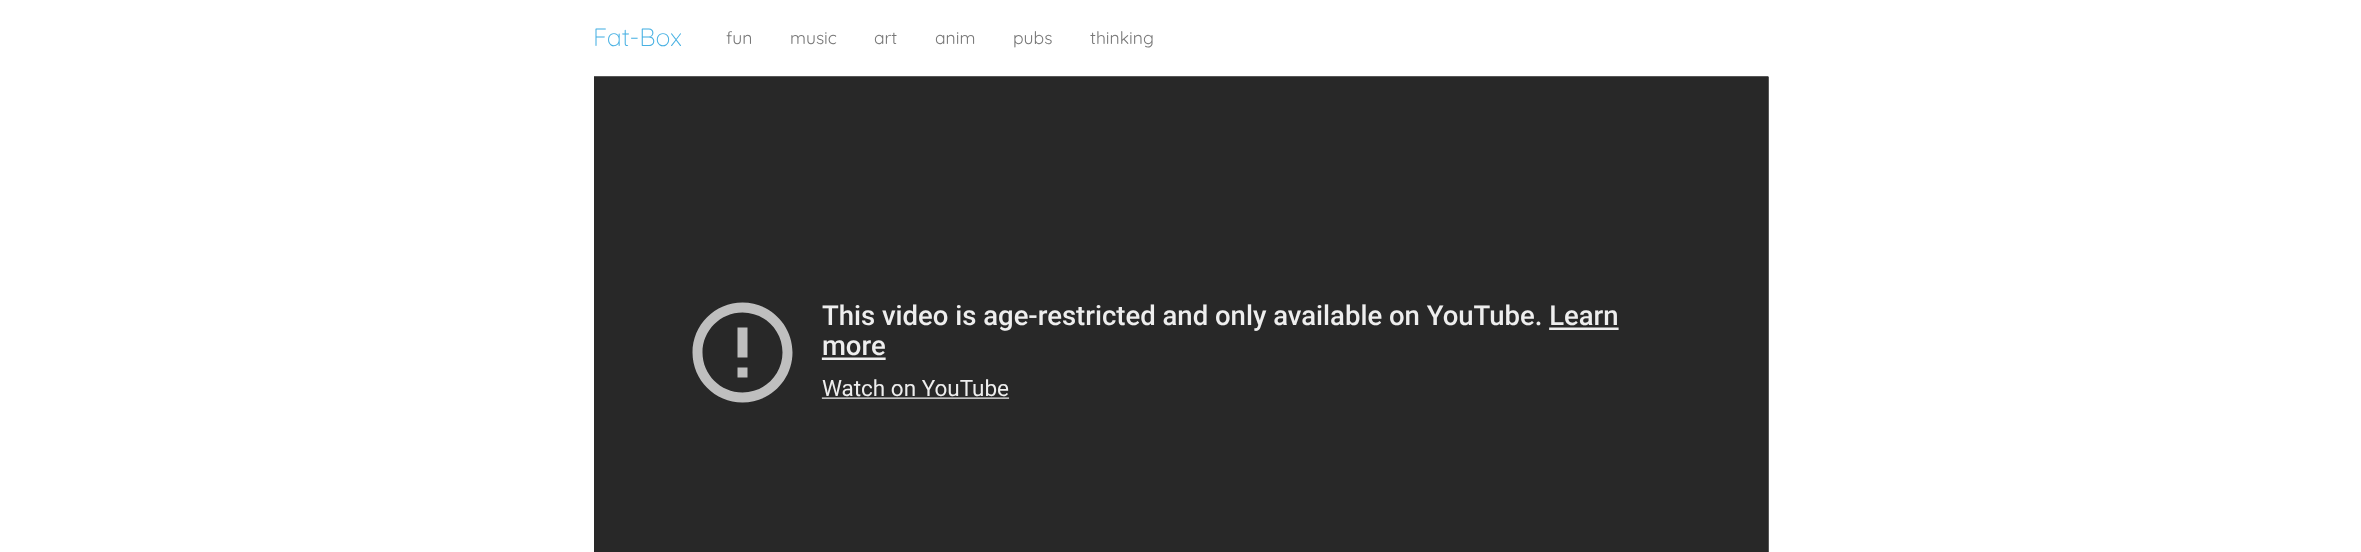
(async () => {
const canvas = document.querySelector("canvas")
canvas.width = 2361
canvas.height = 552
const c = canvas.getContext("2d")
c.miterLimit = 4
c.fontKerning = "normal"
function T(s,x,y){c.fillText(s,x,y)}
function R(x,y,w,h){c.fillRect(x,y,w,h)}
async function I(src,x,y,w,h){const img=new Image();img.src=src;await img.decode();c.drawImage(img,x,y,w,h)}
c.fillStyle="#fff"
R(0,0,2361,552)
c.font="300 25px Quicksand"
c.fillStyle="#48b1e3"
T("Fat-Box",593,46)
c.font="17.5px Quicksand"
c.fillStyle="#777"
T("fun",726,44)
T("music",790,44)
T("art",874,44)
T("anim",935,44)
T("pubs",1013,44)
T("thinking",1090,44)
await I("1.png",594,76,1175,476)
})()
